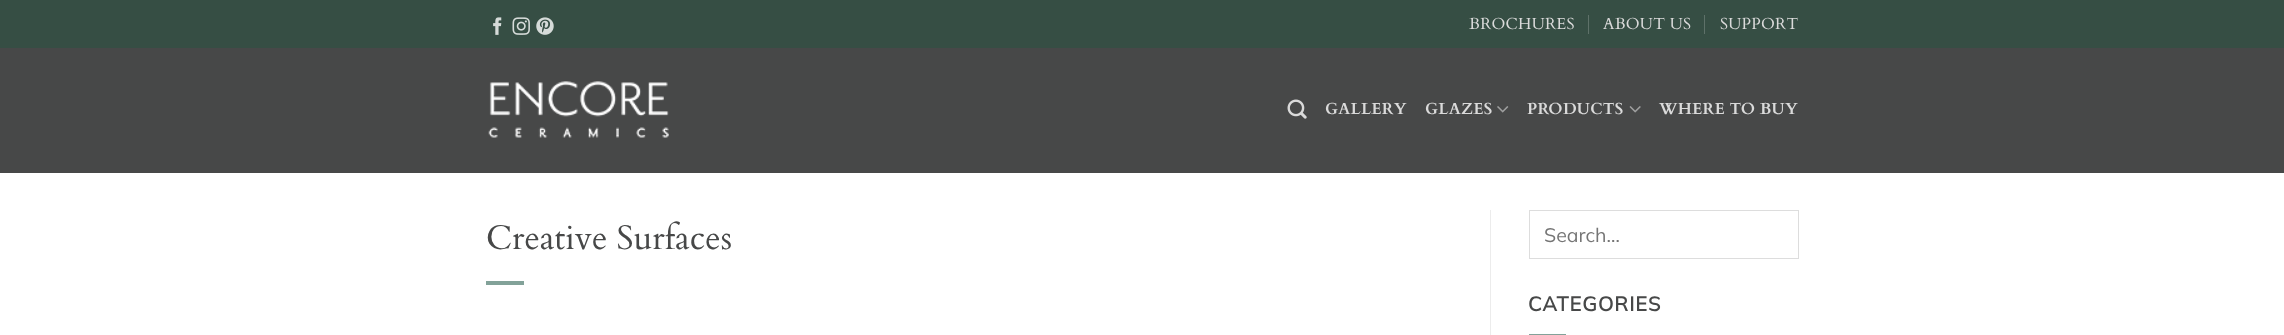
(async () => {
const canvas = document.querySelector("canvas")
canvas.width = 2284
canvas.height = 335
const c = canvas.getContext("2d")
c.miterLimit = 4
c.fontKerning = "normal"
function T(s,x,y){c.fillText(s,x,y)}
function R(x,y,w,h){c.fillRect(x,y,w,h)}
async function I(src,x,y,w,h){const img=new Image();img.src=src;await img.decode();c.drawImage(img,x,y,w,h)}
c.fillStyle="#fff"
R(0,0,2284,335)
c.fillStyle="#364e44"
R(0,0,2284,48)
await I("1.png",493,17,9,18)
await I("2.png",512,17,18,18)
await I("3.png",536,17,18,18)
c.letterSpacing="0.25px"
c.font="16px Cardo"
c.fillStyle="#dadada"
T("BROCHURES",1469,29)
c.fillStyle="#5e7169"
R(1588,15,1,19)
c.fillStyle="#dadada"
T("ABOUT US",1603,29)
c.fillStyle="#5e7169"
R(1704,15,1,19)
c.fillStyle="#dadada"
T("SUPPORT",1720,29)
c.fillStyle="#474848"
R(0,48,2284,125)
await I("4.png",488,81,181,57)
await I("5.png",1287,99,20,20)
c.font="bold 16px Cardo"
c.fillStyle="#dadada"
T("GALLERY",1325,114)
T("GLAZES",1425,114)
await I("6.png",1497,106,12,7)
T("PRODUCTS",1527,114)
await I("7.png",1629,106,12,7)
T("WHERE TO BUY",1659,114)
c.letterSpacing="0px"
c.font="34px Cardo"
c.fillStyle="#474848"
T("Creative Surfaces",486,249)
c.fillStyle="#82a299"
R(486,281,38,4)
c.fillStyle="#ececec"
R(1490,210,1,125)
c.strokeStyle="#ddd"
c.strokeRect(1529.5,210.5,269,48)
c.font="200 19.5px Mulish"
c.fillStyle="#757575"
T("Search…",1544,242)
c.letterSpacing="1px"
c.font="bold 20px Mulish"
c.fillStyle="#474848"
T("CATEGORIES",1528,311)
c.fillStyle="#82a299"
R(1529,334,37,1)
})()
